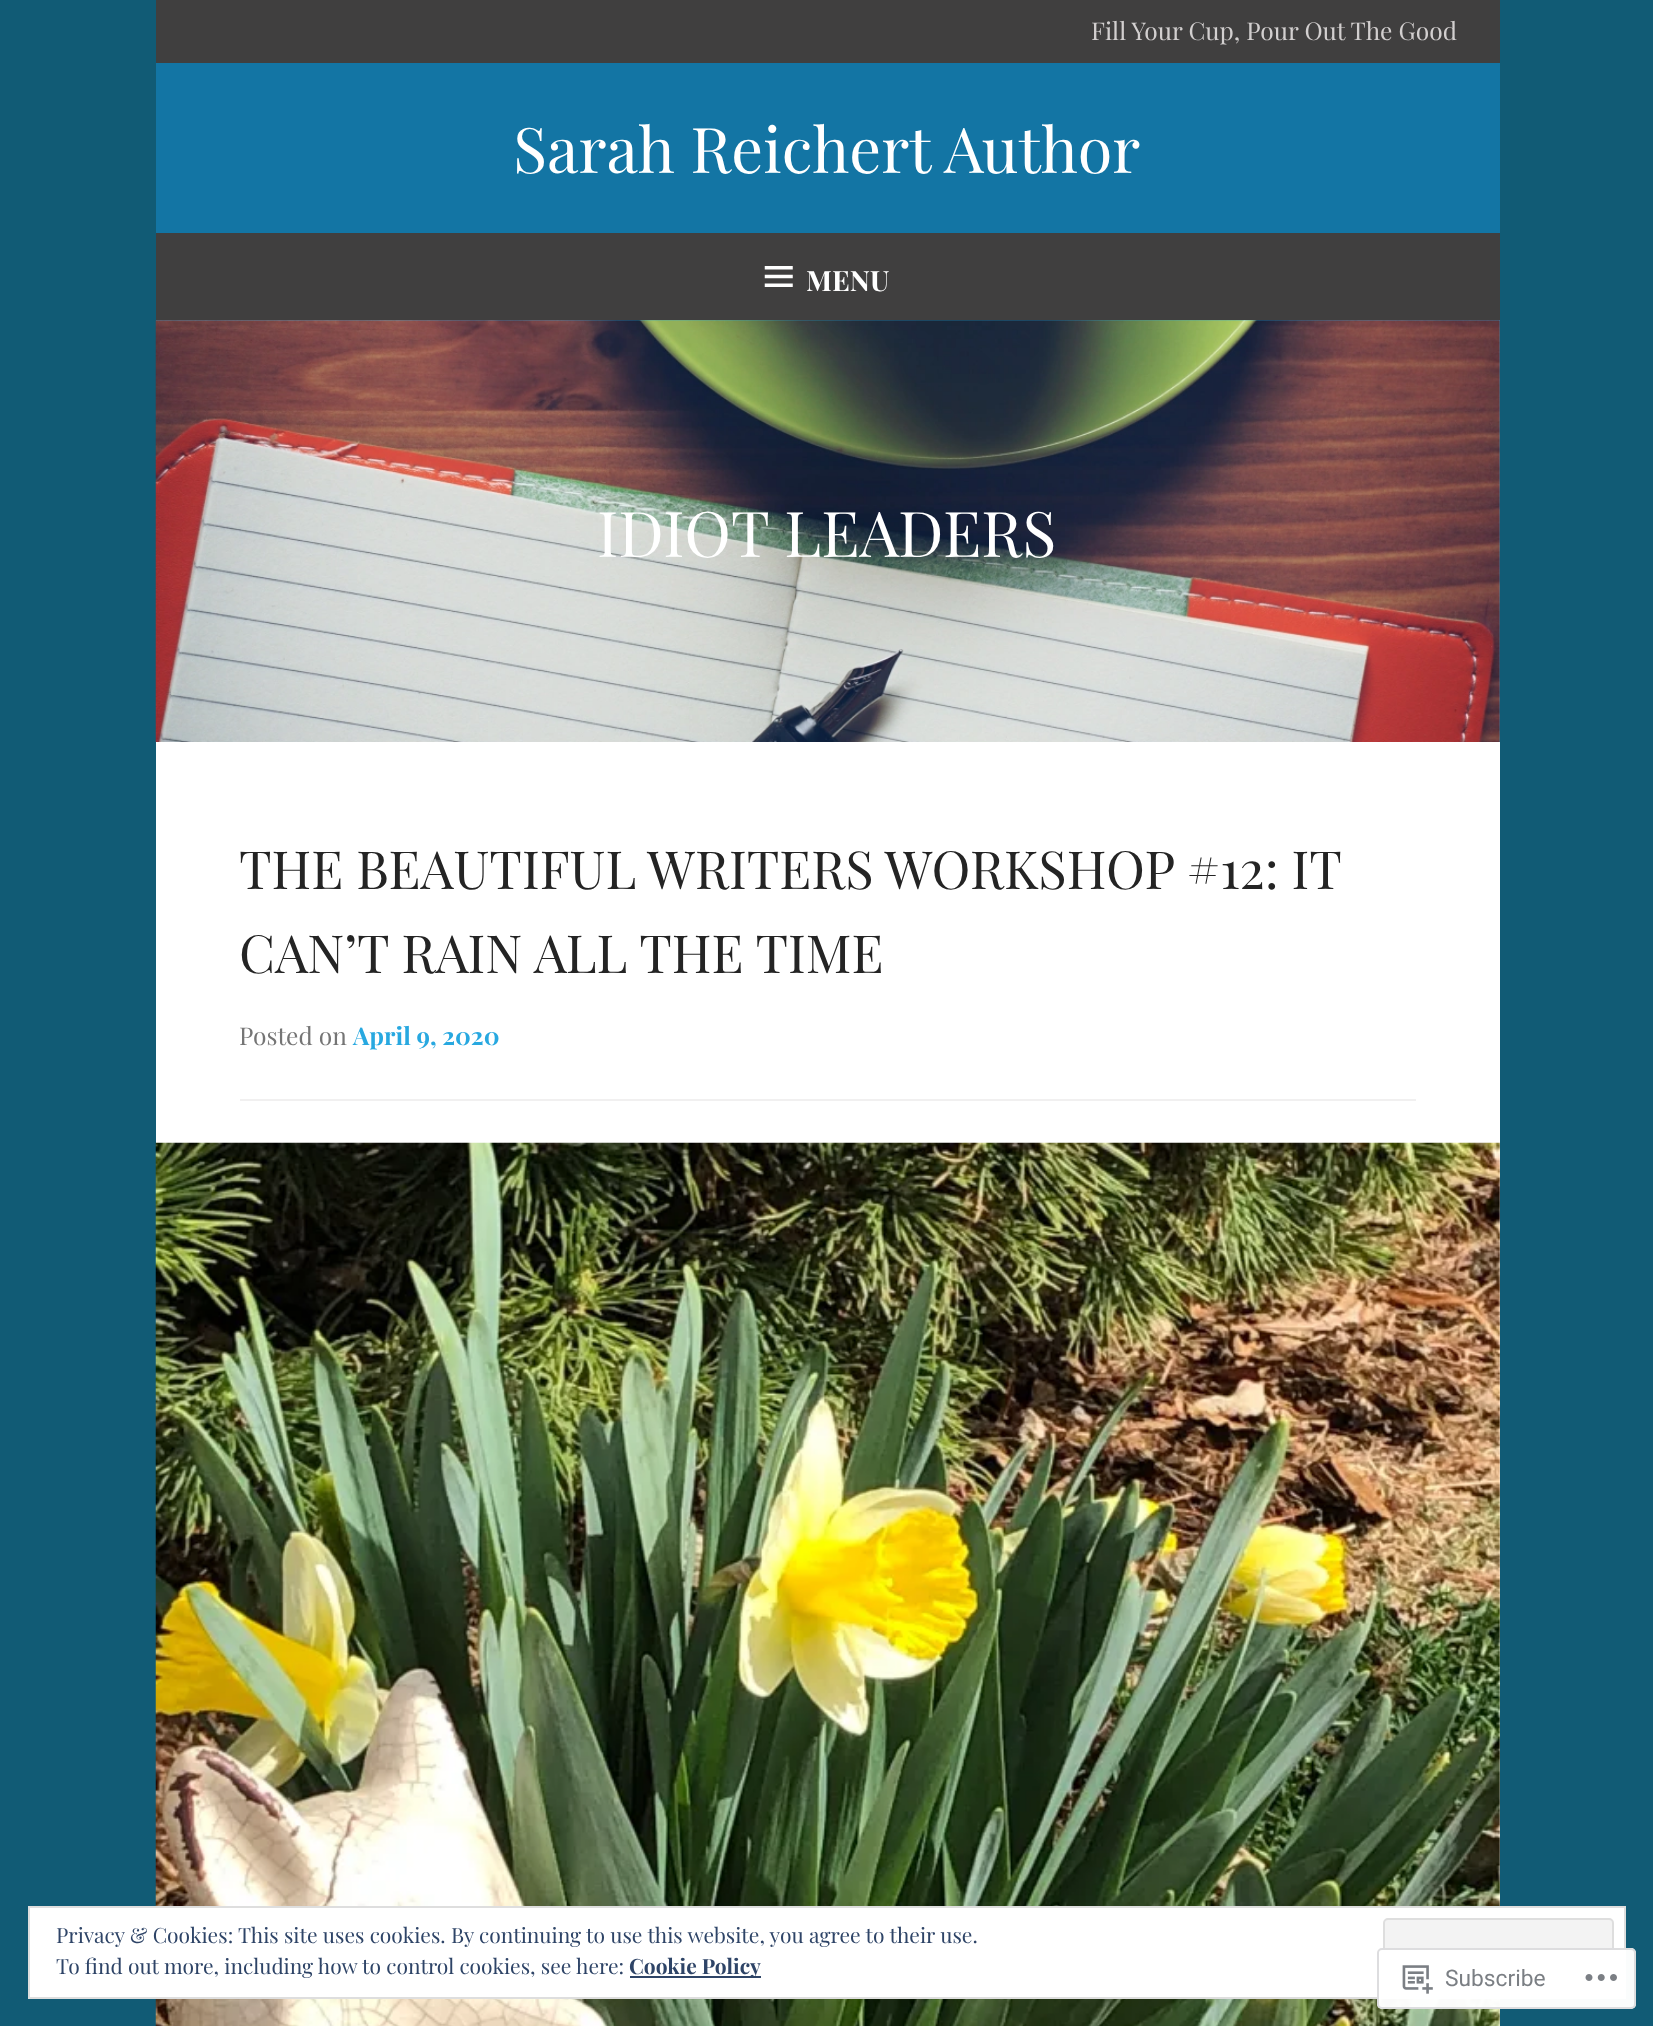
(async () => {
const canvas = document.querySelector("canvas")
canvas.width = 1653
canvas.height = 2026
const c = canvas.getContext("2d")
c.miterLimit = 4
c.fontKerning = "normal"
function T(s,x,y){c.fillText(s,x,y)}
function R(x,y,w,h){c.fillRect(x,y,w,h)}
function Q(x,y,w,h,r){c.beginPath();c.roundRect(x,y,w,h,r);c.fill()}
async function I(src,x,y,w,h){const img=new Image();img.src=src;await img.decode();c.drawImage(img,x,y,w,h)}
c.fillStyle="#115b75"
R(0,0,1653,2026)
c.fillStyle="#fff"
R(156,742,1344,1284)
c.fillStyle="#1375a4"
R(156,63,1344,170)
c.fillStyle="#403f3f"
R(156,0,1344,63)
c.font="24.5px Playfair Display"
c.fillStyle="#d2cfcf"
T("Fill Your Cup, Pour Out The Good",1091,40)
c.font="63px Playfair Display"
c.fillStyle="#fff"
T("Sarah Reichert Author",513,173)
c.fillStyle="#403f3f"
R(156,233,1344,87)
await I("1.png",764,266,29,21)
c.font="bold 28px Playfair Display"
c.fillStyle="#fff"
T("MENU",806,291)
c.fillStyle="#27a8e0"
R(156,320,1344,422)
await I("2.png",155,320,1345,422)
c.font="63px Playfair Display"
c.fillStyle="#fff"
T("IDIOT LEADERS",597,557)
c.wordSpacing="-0.25px"
c.font="52.5px Playfair Display"
c.fillStyle="#242424"
T("THE BEAUTIFUL WRITERS WORKSHOP #12: IT",239,889)
c.wordSpacing="0px"
T("CAN’T RAIN ALL THE TIME",239,973)
c.fillStyle="#f1f0f0"
R(240,1099,1176,2)
c.font="24.5px Playfair Display"
c.fillStyle="#757575"
T("Posted on",239,1045)
c.font="bold 24.5px Playfair Display"
c.fillStyle="#27a8e0"
T("April 9, 2020",353,1045)
await I("3.png",155,1142,1345,884)
c.fillStyle="#fff"
c.beginPath()
c.rect(29,1907,1596,91)
c.fill()
c.strokeStyle="#dedede"
c.lineWidth=2
c.stroke()
c.font="21px Playfair Display"
c.fillStyle="#2e4467"
T("Privacy & Cookies: This site uses cookies. By continuing to use this website, you agree to their use.",56,1943)
c.fillStyle="#f3f3f3"
c.beginPath()
c.roundRect(1384,1919,229,66,4)
c.fill()
c.stroke()
c.fillStyle="#2e4467"
T("To find out more, including how to control cookies, see here:",56,1974)
R(630,1976,131,2)
c.font="bold 21px Playfair Display"
T("Cookie Policy",629,1974)
c.fillStyle="#fffffffa"
Q(1377,1948,259,61,5)
c.beginPath()
c.roundRect(1378,1949,257,59,4)
c.strokeStyle="#dcdcdefa"
c.stroke()
await I("4.png",1402,1965,31,29)
c.font="22.75px Roboto"
c.fillStyle="#7b7f84"
T("Subscribe",1445,1986)
await I("5.png",1585,1974,32,7)
})()
